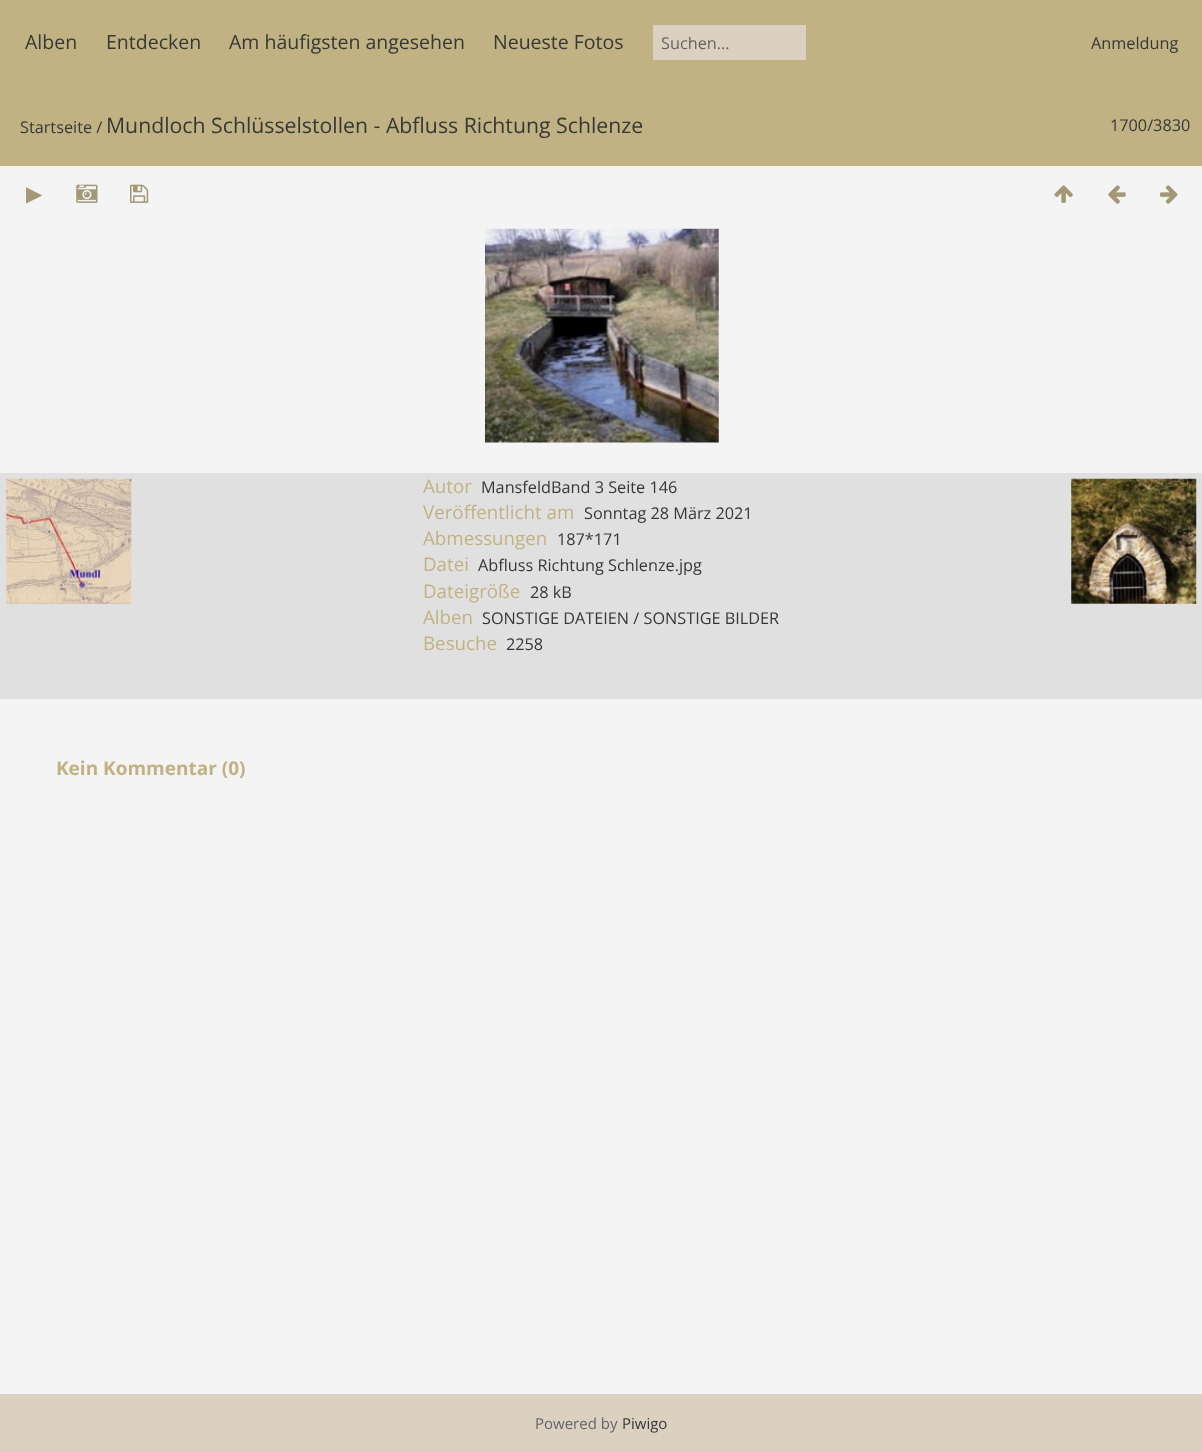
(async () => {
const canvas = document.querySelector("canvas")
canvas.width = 1202
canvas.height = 1452
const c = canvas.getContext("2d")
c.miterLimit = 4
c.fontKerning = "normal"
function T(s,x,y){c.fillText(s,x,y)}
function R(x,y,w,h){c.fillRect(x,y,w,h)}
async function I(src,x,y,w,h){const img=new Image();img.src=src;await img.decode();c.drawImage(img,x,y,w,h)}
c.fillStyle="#f4f4f4"
R(0,0,1202,1452)
c.fillStyle="#c0b283"
R(0,0,1202,166)
c.font="19.5px Open Sans"
c.fillStyle="#373737"
T("Alben",25,49)
T("Entdecken",106,49)
T("Am häufigsten angesehen",229,49)
T("Neueste Fotos",493,49)
c.fillStyle="#dcd0c0"
R(653,25,153,35)
c.font="16.25px Open Sans"
c.fillStyle="#646466"
T("Suchen...",661,49)
c.fillStyle="#373737"
T("Anmeldung",1091,49)
T("Startseite /",20,133)
c.font="21.25px Open Sans"
T("Mundloch Schlüsselstollen - Abfluss Richtung Schlenze",106,133)
c.font="16.25px Open Sans"
T("1700/3830",1110,131)
c.font="21.25px DejaVu Sans"
c.fillStyle="#a29876"
T("▶",26,201)
await I("1.png",76,184,22,19)
await I("2.png",130,184,19,19)
await I("3.png",1054,185,19,18)
await I("4.png",1108,185,18,19)
await I("5.png",1160,185,18,19)
await I("6.png",485,228,234,215)
c.fillStyle="#e0e0e0"
R(0,473,1202,226)
await I("7.png",6,478,126,126)
await I("8.png",1071,478,126,126)
c.font="18.75px Open Sans"
c.fillStyle="#c0b283"
T("Autor",423,493)
c.font="16.25px Open Sans"
c.fillStyle="#373737"
T("MansfeldBand 3 Seite 146",481,493)
c.font="18.75px Open Sans"
c.fillStyle="#c0b283"
T("Veröffentlicht am",423,519)
c.font="16.25px Open Sans"
c.fillStyle="#373737"
T("Sonntag 28 März 2021",584,519)
c.font="18.75px Open Sans"
c.fillStyle="#c0b283"
T("Abmessungen",423,545)
c.font="16.25px Open Sans"
c.fillStyle="#373737"
T("187*171",557,545)
c.font="18.75px Open Sans"
c.fillStyle="#c0b283"
T("Datei",423,571)
c.font="16.25px Open Sans"
c.fillStyle="#373737"
T("Abfluss Richtung Schlenze.jpg",478,571)
c.font="18.75px Open Sans"
c.fillStyle="#c0b283"
T("Dateigröße",423,598)
c.font="16.25px Open Sans"
c.fillStyle="#373737"
T("28 kB",530,598)
c.font="18.75px Open Sans"
c.fillStyle="#c0b283"
T("Alben",423,624)
c.font="16.25px Open Sans"
c.fillStyle="#373737"
T("SONSTIGE DATEIEN / SONSTIGE BILDER",482,624)
c.font="18.75px Open Sans"
c.fillStyle="#c0b283"
T("Besuche",423,650)
c.font="16.25px Open Sans"
c.fillStyle="#373737"
T("2258",506,650)
c.font="bold 19px Open Sans"
c.fillStyle="#c0b283"
T("Kein Kommentar (0)",56,775)
c.fillStyle="#dcd0c0"
R(0,1394,1202,58)
c.font="15px Open Sans"
c.fillStyle="#646466"
T("Powered by",535,1429)
c.fillStyle="#373737"
T("Piwigo",622,1429)
})()
